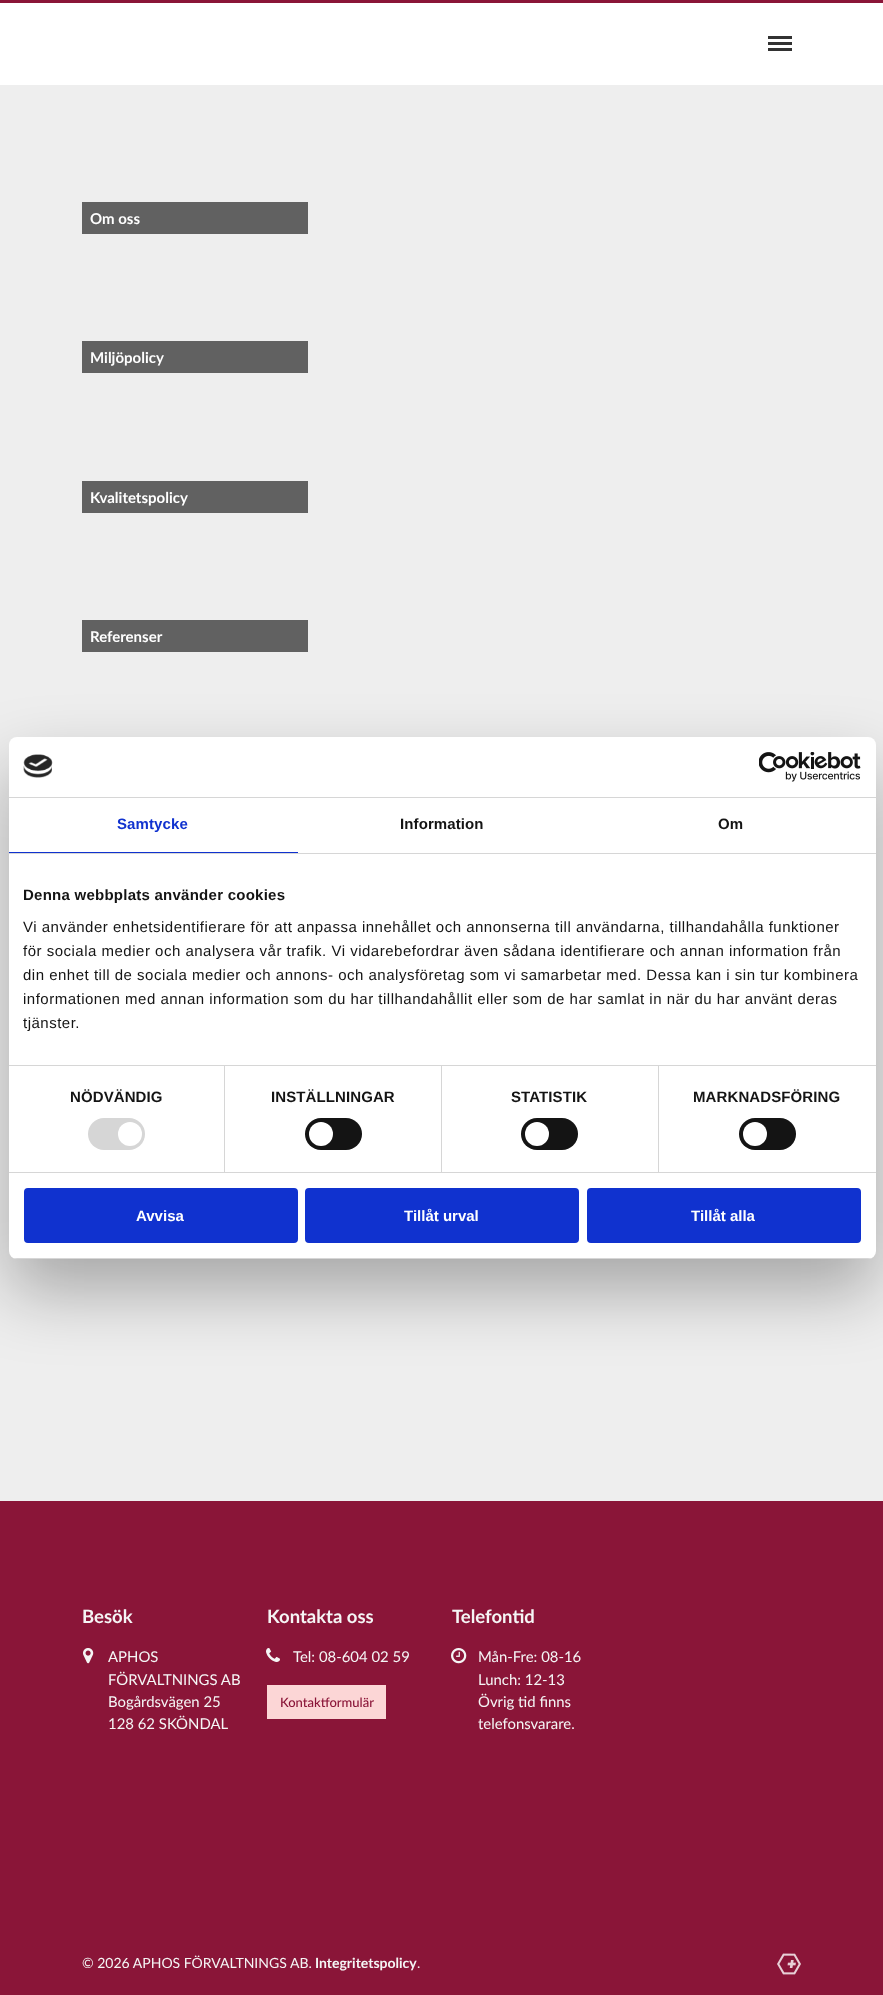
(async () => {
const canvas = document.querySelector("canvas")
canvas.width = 883
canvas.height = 1995
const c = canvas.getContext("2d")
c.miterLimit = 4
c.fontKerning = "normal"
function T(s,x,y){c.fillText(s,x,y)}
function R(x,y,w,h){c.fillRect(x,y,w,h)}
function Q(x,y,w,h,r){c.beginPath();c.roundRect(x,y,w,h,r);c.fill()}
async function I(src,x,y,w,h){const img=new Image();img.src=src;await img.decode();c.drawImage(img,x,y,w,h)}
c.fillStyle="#fff"
R(0,0,883,1995)
c.fillStyle="#8a1538"
R(0,0,883,3)
c.fillStyle="#323232"
R(768,42,24,3)
R(768,36,24,3)
R(768,48,24,3)
c.fillStyle="#eee"
R(0,85,883,1416)
c.fillStyle="#616161"
R(82,202,226,32)
c.font="bold 15px Lato"
c.fillStyle="#fff"
T("Om oss",90,224)
c.fillStyle="#616161"
R(82,341,226,32)
c.fillStyle="#fff"
T("Miljöpolicy",90,363)
c.fillStyle="#616161"
R(82,481,226,32)
c.fillStyle="#fff"
T("Kvalitetspolicy",90,503)
c.fillStyle="#616161"
R(82,620,226,32)
c.fillStyle="#fff"
T("Referenser",90,642)
c.fillStyle="#8a1538"
R(0,1501,883,494)
c.font="bold 18.5px Lato"
c.fillStyle="#f5f5f5"
T("Besök",82,1623)
await I("1.png",83,1648,11,16)
c.font="14.9px Lato"
T("APHOS",108,1662)
T("FÖRVALTNINGS AB",108,1685)
T("Bogårdsvägen 25",108,1707)
T("128 62 SKÖNDAL",108,1729)
c.font="bold 18.5px Lato"
T("Kontakta oss",267,1623)
await I("2.png",266,1648,14,14)
c.font="14.9px Lato"
T("Tel: 08-604 02 59",293,1662)
c.fillStyle="#fcd6d6"
R(267,1685,119,34)
c.font="500 13px Lato"
c.fillStyle="#8a1538"
T("Kontaktformulär",280,1707)
c.font="bold 18.5px Lato"
c.fillStyle="#f5f5f5"
T("Telefontid",452,1623)
await I("3.png",451,1648,16,16)
c.font="14.9px Lato"
T("Mån-Fre: 08-16",478,1662)
T("Lunch: 12-13",478,1685)
T("Övrig tid finns",478,1707)
T("telefonsvarare.",478,1729)
c.font="14px Lato"
T("© 2026 APHOS FÖRVALTNINGS AB.",82,1968)
c.font="bold 14px Lato"
T("Integritetspolicy",315,1968)
c.font="14px Lato"
T(".",417,1968)
await I("4.png",777,1953,24,22)
c.fillStyle="#0000004d"
c.filter="blur(34px)"
c.beginPath()
c.roundRect(9,769,867,522,8)
c.fill()
c.filter="none"
c.fillStyle="#fff"
Q(9,737,867,522,8)
c.fillStyle="#d6d6d6"
R(9,797,867,1)
await I("5.png",23,754,30,24)
await I("6.png",759,752,102,30)
R(9,853,867,1)
c.fillStyle="#1032cf"
R(9,852,289,1)
c.letterSpacing="0.1px"
c.font="bold 15px Liberation Sans"
T("Samtycke",117,829)
c.fillStyle="#141414"
T("Information",400,829)
T("Om",718,829)
c.fillStyle="#d6d6d6"
R(9,1065,867,1)
c.letterSpacing="0.25px"
c.fillStyle="#141414"
T("Denna webbplats använder cookies",23,900)
c.letterSpacing="0.5px"
c.font="15px Liberation Sans"
T("Vi använder enhetsidentifierare för att anpassa innehållet och annonserna till användarna, tillhandahålla funktioner",23,932)
T("för sociala medier och analysera vår trafik. Vi vidarebefordrar även sådana identifierare och annan information från",23,956)
T("din enhet till de sociala medier och annons- och analysföretag som vi samarbetar med. Dessa kan i sin tur kombinera",23,980)
T("informationen med annan information som du har tillhandahållit eller som de har samlat in när du har använt deras",23,1004)
T("tjänster.",23,1028)
c.fillStyle="#d6d6d6"
R(9,1172,867,1)
R(224,1066,1,106)
c.letterSpacing="0.1px"
c.font="bold 15px Liberation Sans"
c.fillStyle="#141414"
T("NÖDVÄNDIG",70,1102)
c.fillStyle="#d6d6d6"
Q(88,1118,57,32,16)
c.fillStyle="#fff"
c.beginPath()
c.arc(130,1134,12,0,7)
c.fill()
c.fillStyle="#d6d6d6"
R(441,1066,1,106)
c.fillStyle="#141414"
T("INSTÄLLNINGAR",271,1102)
Q(305,1118,57,32,16)
c.fillStyle="#fff"
c.beginPath()
c.arc(321,1134,12,0,7)
c.fill()
c.fillStyle="#d6d6d6"
R(658,1066,1,106)
c.fillStyle="#141414"
T("STATISTIK",511,1102)
Q(521,1118,57,32,16)
c.fillStyle="#fff"
c.beginPath()
c.arc(537,1134,12,0,7)
c.fill()
c.fillStyle="#141414"
T("MARKNADSFÖRING",693,1102)
Q(739,1118,57,32,16)
c.fillStyle="#fff"
c.beginPath()
c.arc(755,1134,12,0,7)
c.fill()
c.save()
c.beginPath()
c.roundRect(9,737,867,522,8)
c.clip()
c.fillStyle="#d6d6d6"
R(9,1258,867,1)
c.restore()
c.fillStyle="#1032cf"
c.beginPath()
c.roundRect(25,1189,272,53,3)
c.fill()
c.strokeStyle="#1032cf"
c.lineWidth=2
c.stroke()
c.letterSpacing="0px"
c.fillStyle="#fff"
T("Avvisa",136,1221)
c.fillStyle="#1032cf"
c.beginPath()
c.roundRect(306,1189,272,53,3)
c.fill()
c.stroke()
c.fillStyle="#fff"
T("Tillåt urval",404,1221)
c.fillStyle="#1032cf"
c.beginPath()
c.roundRect(588,1189,272,53,3)
c.fill()
c.stroke()
c.fillStyle="#fff"
T("Tillåt alla",691,1221)
})()
